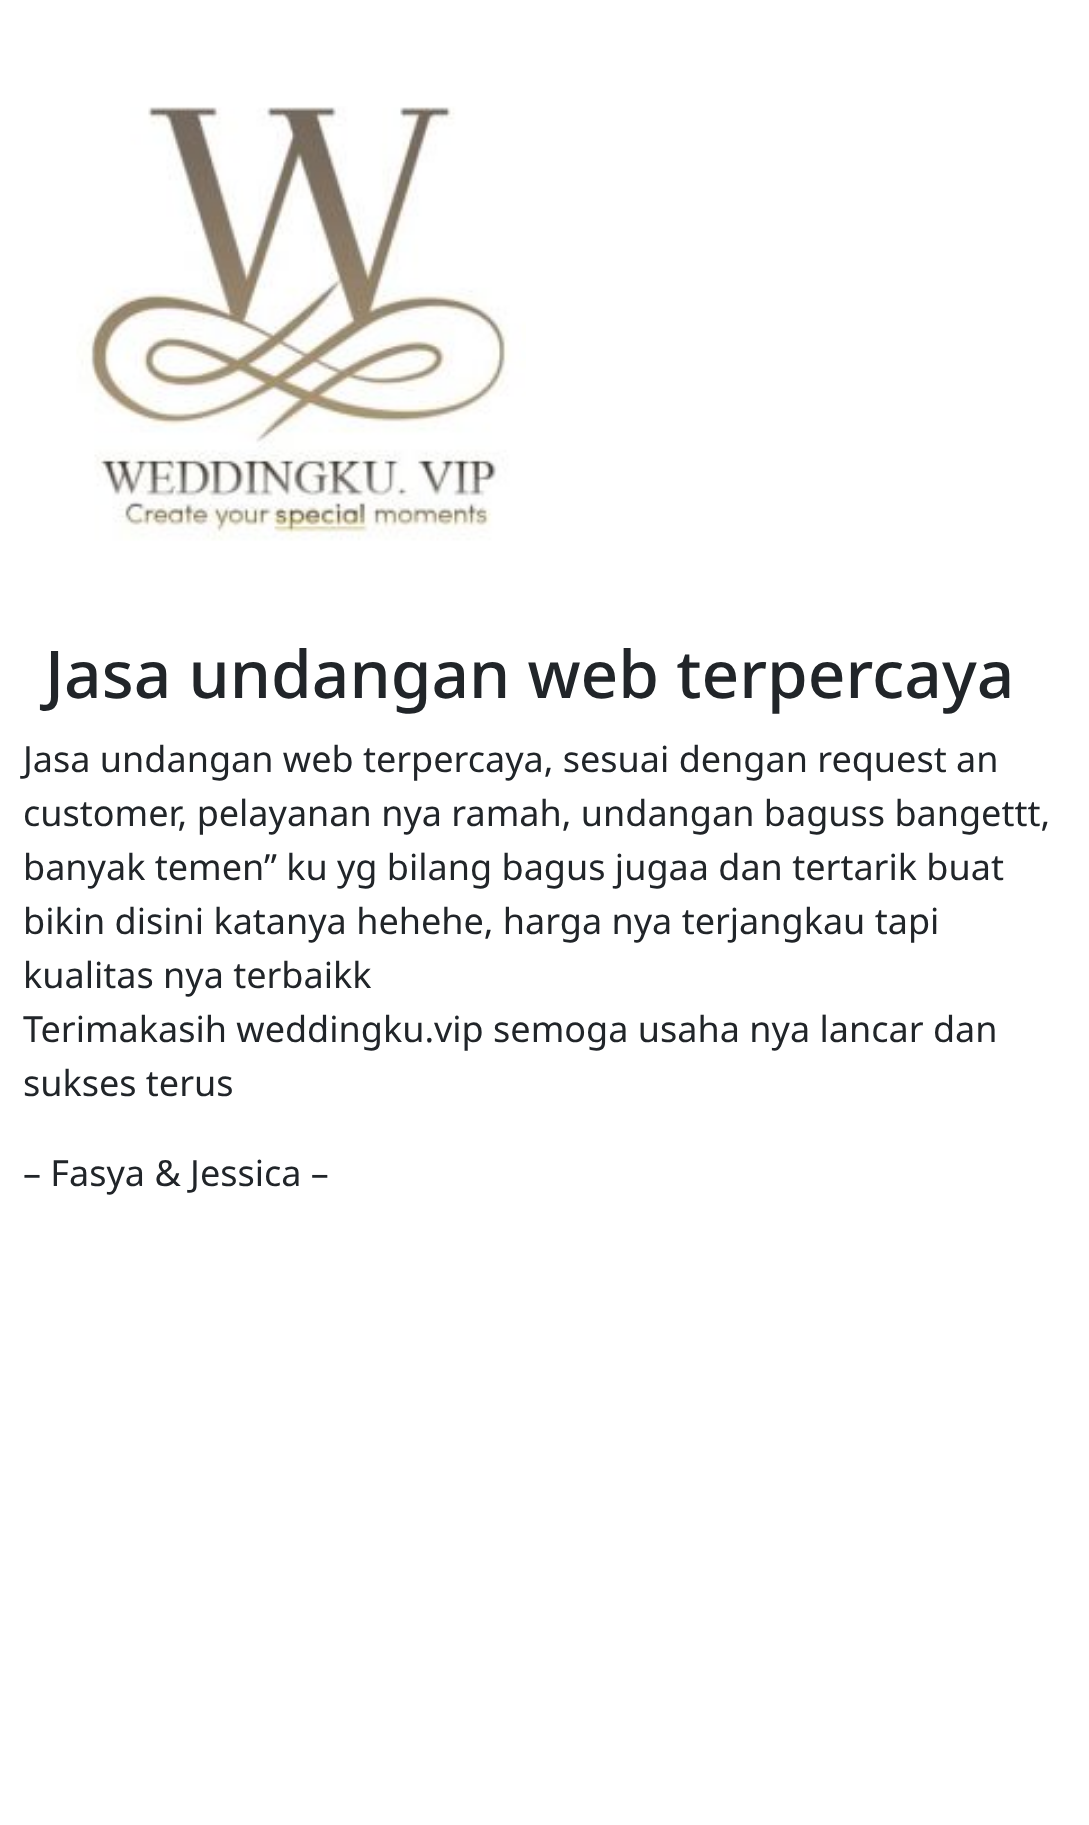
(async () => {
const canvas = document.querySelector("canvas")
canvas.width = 1089
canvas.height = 1825
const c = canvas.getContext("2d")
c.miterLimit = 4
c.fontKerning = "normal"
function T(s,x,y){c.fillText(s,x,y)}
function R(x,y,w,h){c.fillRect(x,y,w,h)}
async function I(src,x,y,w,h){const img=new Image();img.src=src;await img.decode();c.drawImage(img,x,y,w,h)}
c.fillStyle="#fff"
R(0,0,1089,1825)
await I("1.png",76,106,450,435)
c.font="500 65.8px Noto Sans"
c.fillStyle="#212529"
T("Jasa undangan web terpercaya",45,698)
c.font="36px Noto Sans"
T("Jasa undangan web terpercaya, sesuai dengan request an",23,772)
T("customer, pelayanan nya ramah, undangan baguss bangettt,",23,826)
T("banyak temen” ku yg bilang bagus jugaa dan tertarik buat",23,880)
T("bikin disini katanya hehehe, harga nya terjangkau tapi",23,934)
T("kualitas nya terbaikk",23,988)
T("Terimakasih weddingku.vip semoga usaha nya lancar dan",23,1042)
T("sukses terus",23,1096)
T("– Fasya & Jessica –",23,1186)
})()
